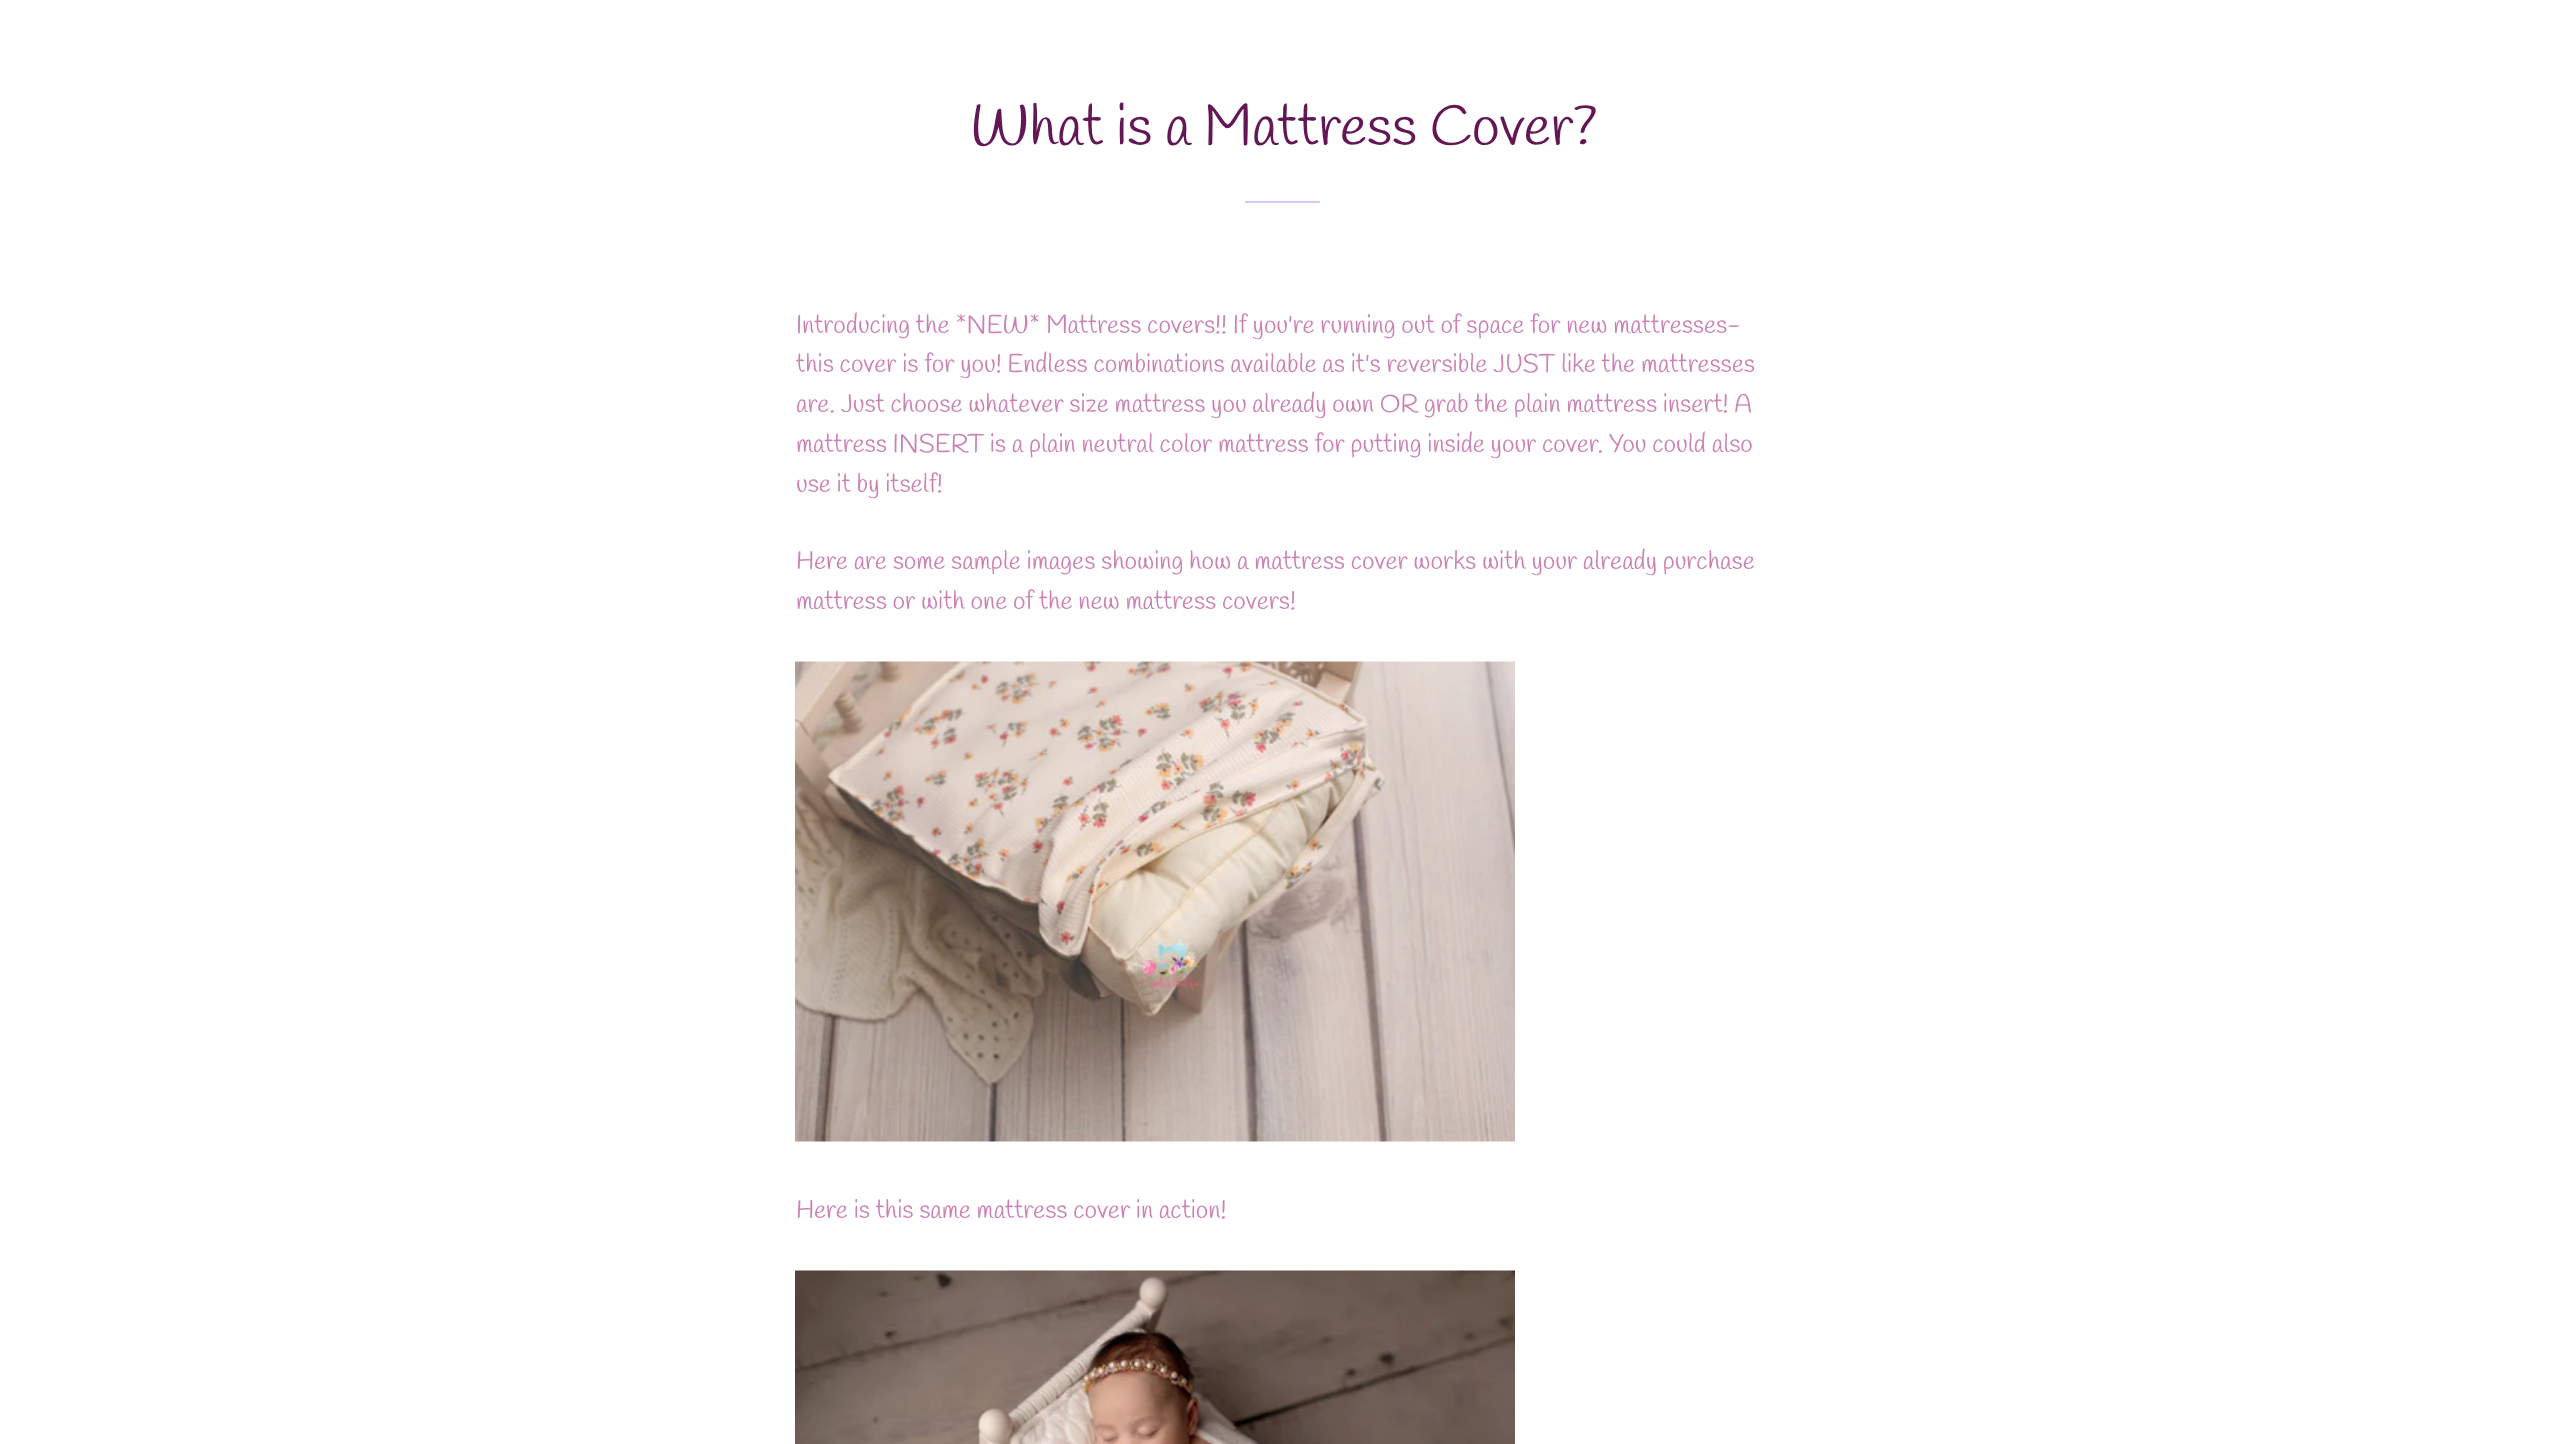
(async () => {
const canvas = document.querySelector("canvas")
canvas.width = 2566
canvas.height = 1444
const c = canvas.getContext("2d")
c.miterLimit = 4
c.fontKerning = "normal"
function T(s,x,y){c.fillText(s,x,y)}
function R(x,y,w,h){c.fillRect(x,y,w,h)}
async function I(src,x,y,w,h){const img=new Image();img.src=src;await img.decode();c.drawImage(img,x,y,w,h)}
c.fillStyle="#fff"
R(0,0,2566,1444)
c.font="57px Handlee"
c.fillStyle="#631855"
T("What is a Mattress Cover?",970,145)
c.fillStyle="#ddc6f2"
R(1245,201,75,2)
c.font="25.5px Handlee"
c.fillStyle="#cc81b5"
T("Introducing the *NEW* Mattress covers!! If you're running out of space for new mattresses-",796,333)
T("this cover is for you! Endless combinations available as it's reversible JUST like the mattresses",796,372)
T("are. Just choose whatever size mattress you already own OR grab the plain mattress insert! A",796,412)
T("mattress INSERT is a plain neutral color mattress for putting inside your cover. You could also",796,452)
T("use it by itself!",796,492)
T("Here are some sample images showing how a mattress cover works with your already purchase",796,569)
T("mattress or with one of the new mattress covers!",796,609)
await I("1.png",795,661,720,481)
T("Here is this same mattress cover in action!",796,1218)
await I("2.png",795,1270,720,174)
})()
